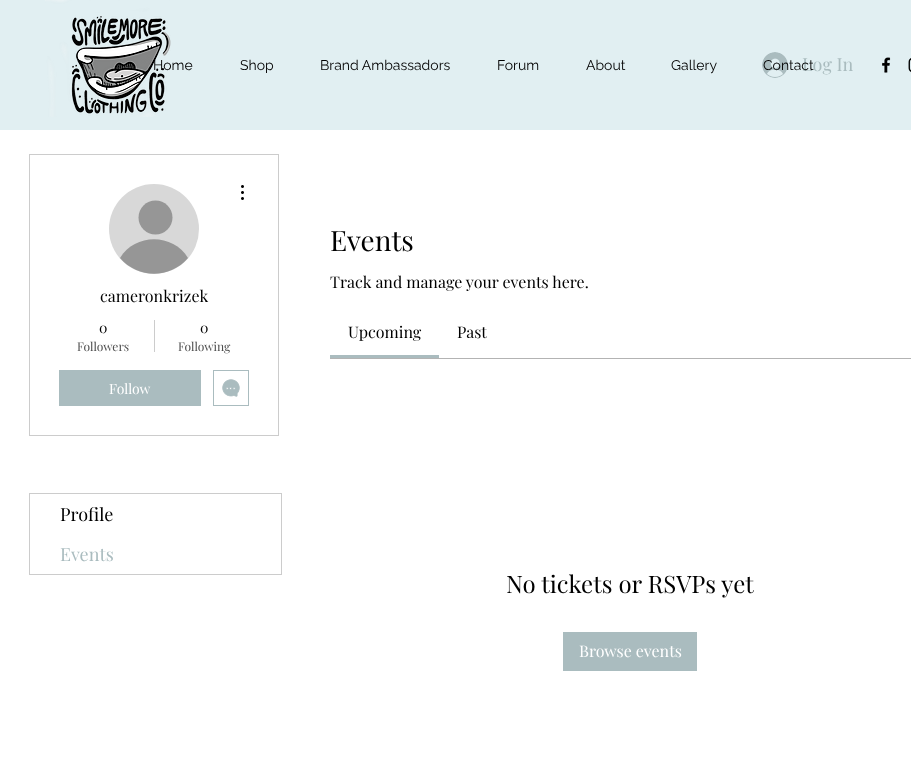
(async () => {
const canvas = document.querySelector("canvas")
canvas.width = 911
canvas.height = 772
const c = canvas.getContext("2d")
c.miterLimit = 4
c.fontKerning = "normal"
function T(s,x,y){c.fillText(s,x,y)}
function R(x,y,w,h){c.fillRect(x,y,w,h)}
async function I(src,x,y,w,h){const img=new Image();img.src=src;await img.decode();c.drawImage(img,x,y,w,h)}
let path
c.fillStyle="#fff"
R(0,0,911,772)
c.fillStyle="#e1eff2"
R(0,0,911,130)
await I("1.png",45,0,126,117)
c.font="14px Raleway"
c.fillStyle="#000"
T("Home",153,70)
T("Shop",240,70)
T("Brand Ambassadors",320,70)
T("Forum",497,70)
T("About",586,70)
T("Gallery",671,70)
await I("2.png",762,52,26,26)
c.font="18px Playfair Display"
c.fillStyle="#aabcbf"
T("Log In",802,71)
c.font="14px Raleway"
c.fillStyle="#000"
T("Contact",763,70)
await I("3.png",882,57,9,16)
await I("4.png",908,58,3,14)
c.strokeStyle="#ccc"
c.strokeRect(29.5,154.5,249,281)
c.fillStyle="#d8d8d8"
c.beginPath()
c.arc(154,229,45,0,7)
c.fill()
c.fillStyle="#969696"
c.beginPath()
c.arc(155.5,217.5,17,0,7)
c.fill()
path = new Path2D("M188 258c-18 21-50 21-68 0c15-25 53-25 68 0z")
c.fill(path)
await I("5.png",241,185,3,15)
c.font="16px Playfair Display"
c.fillStyle="#000"
T("cameronkrizek",100,302)
c.font="14px Playfair Display"
T("0",99,333)
c.font="12px Playfair Display"
c.fillStyle="#4d4d4d"
T("Followers",77,351)
c.fillStyle="#ccc"
R(154,320,1,32)
c.font="14px Playfair Display"
c.fillStyle="#000"
T("0",200,333)
c.font="12px Playfair Display"
c.fillStyle="#4d4d4d"
T("Following",178,351)
c.fillStyle="#aabcbf"
R(59,370,142,36)
c.font="14px Playfair Display"
c.fillStyle="#fff"
T("Follow",109,394)
c.strokeStyle="#aabcbf"
c.strokeRect(213.5,370.5,35,35)
await I("6.png",222,379,18,18)
c.strokeStyle="#ccc"
c.strokeRect(29.5,493.5,252,81)
c.font="18px Playfair Display"
c.fillStyle="#000"
T("Profile",60,521)
c.fillStyle="#aabcbf"
T("Events",60,561)
c.font="28px Playfair Display"
c.fillStyle="#000"
T("Events",330,251)
c.font="16px Playfair Display"
T("Track and manage your events here.",330,288)
c.fillStyle="#aabcbf"
R(330,355,109,3)
c.fillStyle="#000"
T("Upcoming",348,338)
T("Past",457,338)
c.fillStyle="#b3b3b3"
R(330,358,581,1)
c.font="24px Playfair Display"
c.fillStyle="#000"
T("No tickets or RSVPs yet",506,593)
c.fillStyle="#aabcbf"
R(563,632,134,39)
c.font="16px Playfair Display"
c.fillStyle="#fff"
T("Browse events",579,657)
})()
